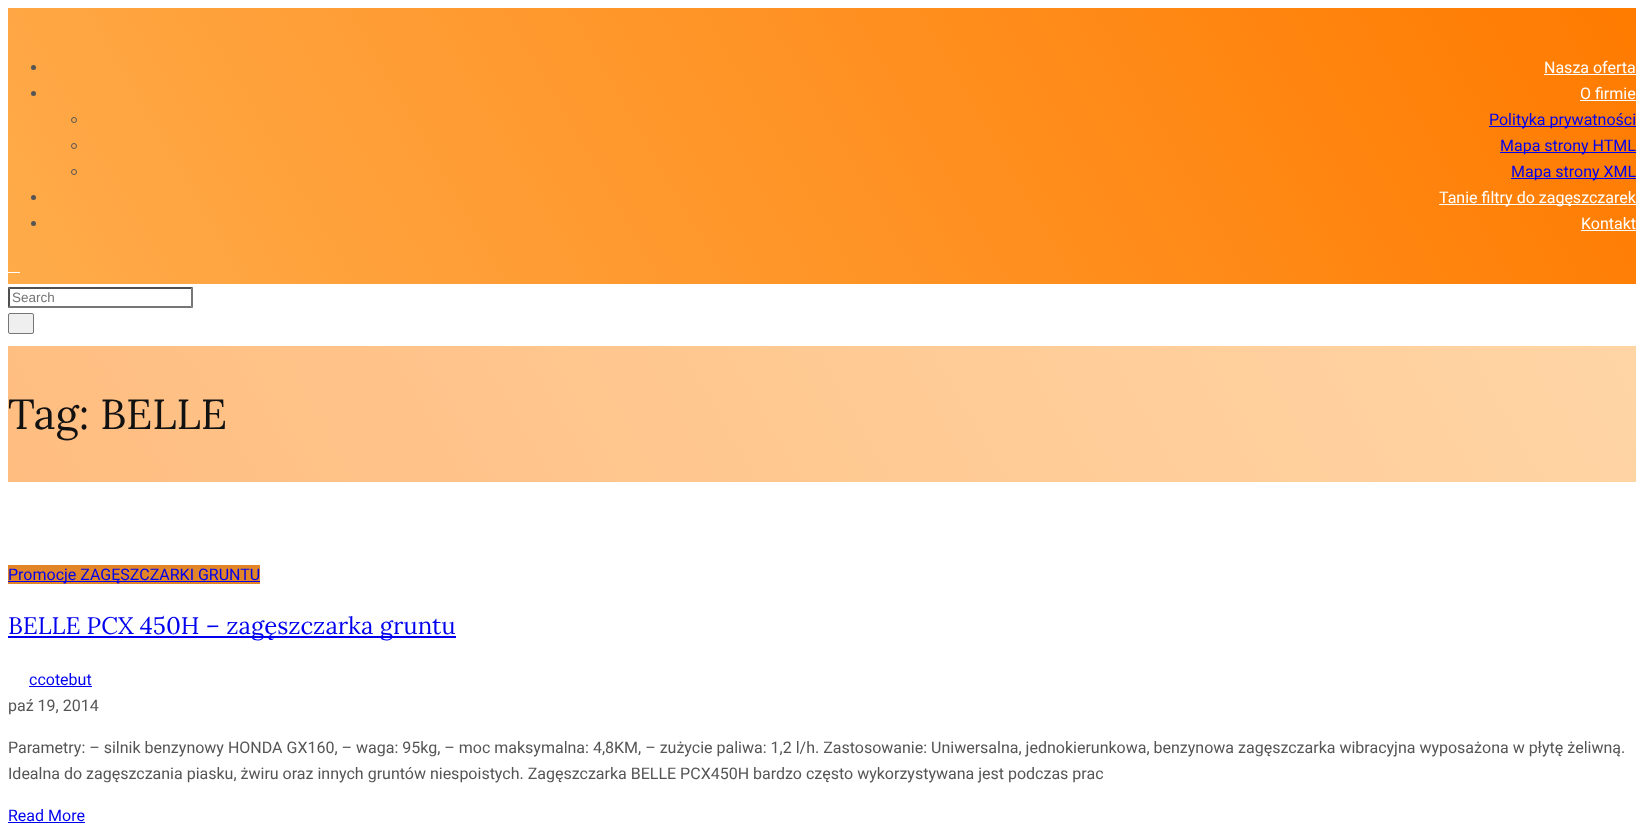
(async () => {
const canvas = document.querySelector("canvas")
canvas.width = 1644
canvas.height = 828
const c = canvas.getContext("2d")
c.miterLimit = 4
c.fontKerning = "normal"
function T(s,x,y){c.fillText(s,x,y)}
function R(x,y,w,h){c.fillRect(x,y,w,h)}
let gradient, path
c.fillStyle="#fff"
R(0,0,1644,828)
gradient = c.createLinearGradient(152,533,1492,-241)
gradient.addColorStop(0,"#ffab4a")
gradient.addColorStop(1,"#ff7b00")
c.fillStyle = gradient
R(8,8,1628,276)
c.fillStyle="#555"
c.beginPath()
c.arc(33.5,67.5,2.5,0,7)
c.fill()
c.font="16px Roboto"
c.fillStyle="#fff"
T("Nasza oferta",1544,73)
R(1544,74,92,1)
c.fillStyle="#555"
c.beginPath()
c.arc(33.5,93.5,2.5,0,7)
c.fill()
c.fillStyle="#fff"
T("O firmie",1580,99)
R(1580,100,56,1)
c.beginPath()
c.arc(74,120,2.5,0,7)
c.strokeStyle="#555"
c.stroke()
c.fillStyle="#00e"
R(1489,126,147,1)
T("Polityka prywatności",1489,125)
c.beginPath()
c.arc(74,146,2.5,0,7)
c.stroke()
R(1500,152,136,1)
T("Mapa strony HTML",1500,151)
c.beginPath()
c.arc(74,172,2.5,0,7)
c.stroke()
R(1511,178,125,1)
T("Mapa strony XML",1511,177)
c.fillStyle="#555"
c.beginPath()
c.arc(33.5,197.5,2.5,0,7)
c.fill()
c.fillStyle="#fff"
R(1439,204,197,1)
T("Tanie filtry do zagęszczarek",1439,203)
c.fillStyle="#555"
c.beginPath()
c.arc(33.5,223.5,2.5,0,7)
c.fill()
c.fillStyle="#fff"
T("Kontakt",1581,229)
R(1581,230,55,1)
R(8,272,12,1)
c.fillStyle="#4f4f4f"
path = new Path2D("M8 287h185l-2 2h-181z")
c.fill(path)
c.fillStyle="#767676"
path = new Path2D("M193 287v21l-2-2v-17z")
c.fill(path)
path = new Path2D("M193 308h-185l2-2h181z")
c.fill(path)
c.fillStyle="#4f4f4f"
path = new Path2D("M8 308v-21l2 2v17z")
c.fill(path)
c.font="13.5px Liberation Sans"
c.fillStyle="#757575"
T("Search",12,302)
c.fillStyle="#efefef"
c.beginPath()
c.roundRect(8.5,313.5,25,20,1.5)
c.fill()
c.strokeStyle="#767676"
c.stroke()
gradient = c.createLinearGradient(182,783,1462,45)
gradient.addColorStop(0,"#ffbd80")
gradient.addColorStop(1,"#ffd5a5")
c.fillStyle = gradient
R(8,346,1628,136)
c.font="42px Lora"
c.fillStyle="#111"
T("Tag: BELLE",8,429)
c.fillStyle="#e28428"
R(8,565,252,19)
c.fillStyle="#00e"
R(8,581,252,1)
c.font="16px Roboto"
T("Promocje ZAGĘSZCZARKI GRUNTU",8,580)
R(8,636,448,2)
c.font="24px Lora"
T("BELLE PCX 450H – zagęszczarka gruntu",8,634)
c.font="16px Roboto"
T("ccotebut",29,685)
R(29,686,63,1)
c.fillStyle="#555"
T("paź 19, 2014",8,711)
T("Parametry: – silnik benzynowy HONDA GX160, – waga: 95kg, – moc maksymalna: 4,8KM, – zużycie paliwa: 1,2 l/h. Zastosowanie: Uniwersalna, jednokierunkowa, benzynowa zagęszczarka wibracyjna wyposażona w płytę żeliwną.",8,753)
T("Idealna do zagęszczania piasku, żwiru oraz innych gruntów niespoistych. Zagęszczarka BELLE PCX450H bardzo często wykorzystywana jest podczas prac",8,779)
c.fillStyle="#00e"
T("Read More",8,821)
R(8,822,77,1)
})()
